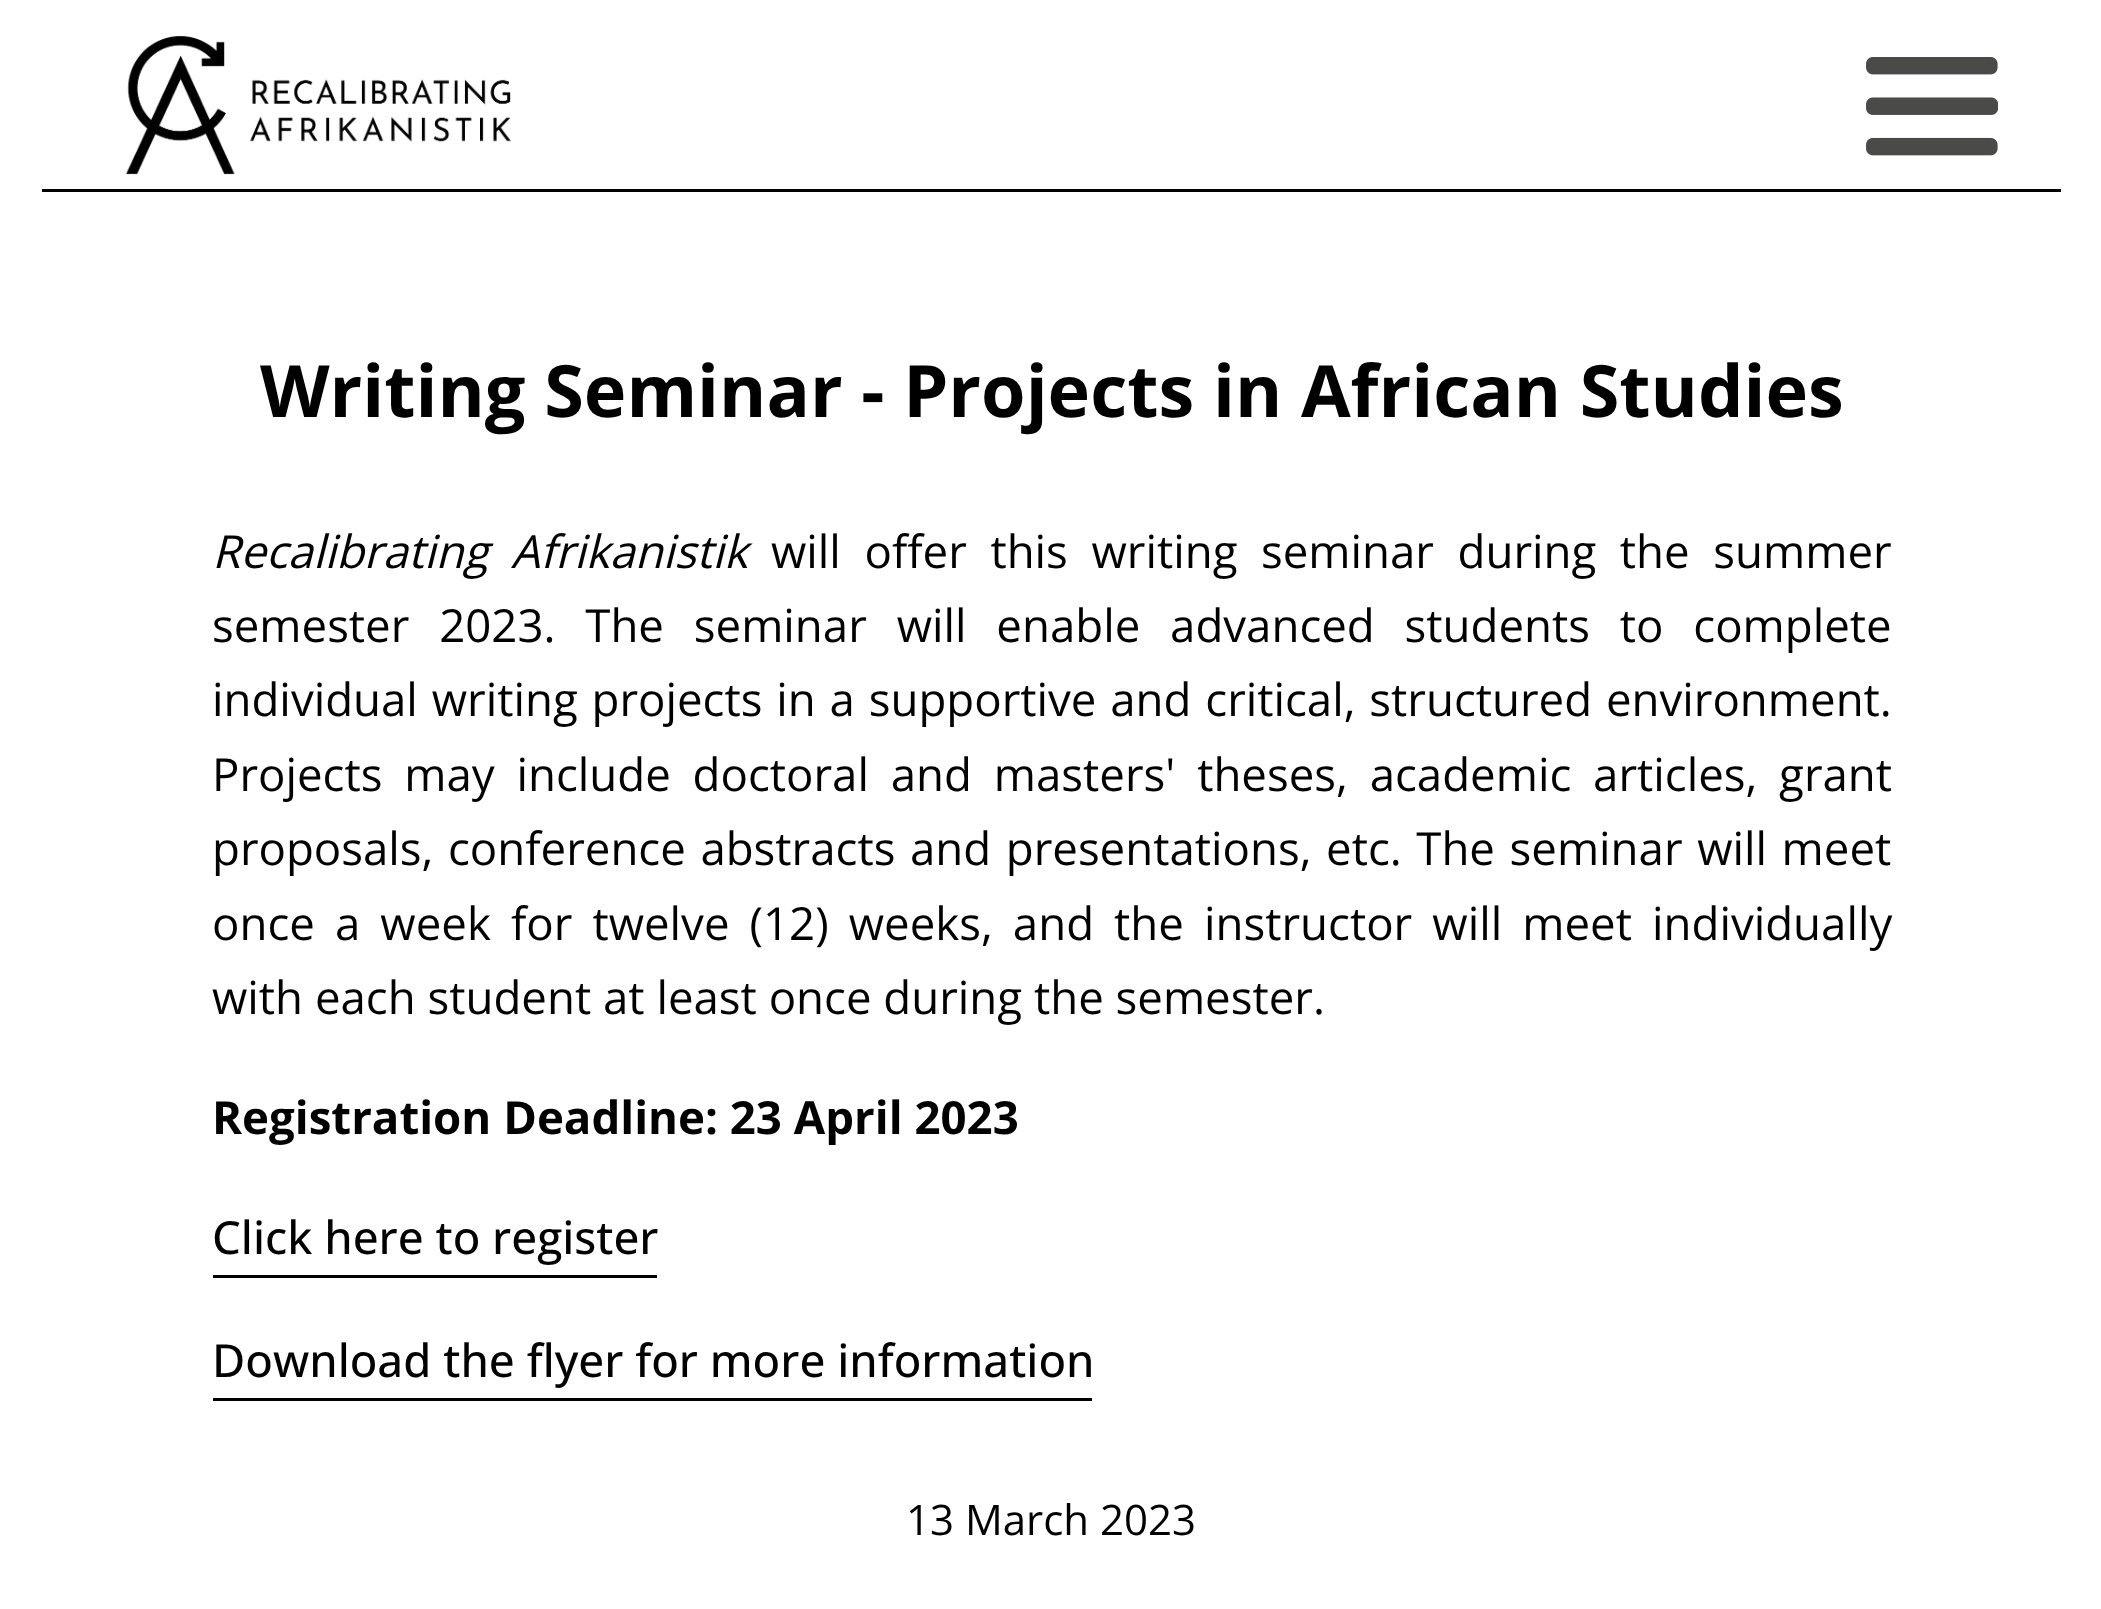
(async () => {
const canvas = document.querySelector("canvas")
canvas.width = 2101
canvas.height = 1609
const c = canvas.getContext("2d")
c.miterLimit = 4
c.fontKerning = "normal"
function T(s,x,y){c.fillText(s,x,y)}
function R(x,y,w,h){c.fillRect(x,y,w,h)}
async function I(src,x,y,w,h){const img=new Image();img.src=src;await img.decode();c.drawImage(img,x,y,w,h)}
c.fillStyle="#fff"
R(0,0,2101,1609)
c.fillStyle="#000"
R(42,189,2019,3)
await I("1.png",125,35,386,140)
await I("2.png",1866,57,132,99)
c.font="bold 72px Open Sans"
T("Writing Seminar - Projects in African Studies",260,417)
c.wordSpacing="11px"
c.font="italic 45.6px Open Sans"
T("Recalibrating Afrikanistik",212,568)
c.wordSpacing="11.75px"
c.font="45.6px Open Sans"
T("will offer this writing seminar during the summer",771,568)
c.wordSpacing="18px"
T("semester 2023. The seminar will enable advanced students to complete",212,642)
c.wordSpacing="2px"
T("individual writing projects in a supportive and critical, structured environment.",212,716)
c.wordSpacing="10px"
T("Projects may include doctoral and masters' theses, academic articles, grant",212,791)
c.wordSpacing="2.75px"
T("proposals, conference abstracts and presentations, etc. The seminar will meet",212,865)
c.wordSpacing="8.25px"
T("once a week for twelve (12) weeks, and the instructor will meet individually",212,940)
c.wordSpacing="0px"
T("with each student at least once during the semester.",212,1014)
c.font="bold 45.6px Open Sans"
T("Registration Deadline: 23 April 2023",212,1134)
R(213,1275,444,3)
c.font="500 45.6px Open Sans"
T("Click here to register",212,1254)
R(213,1398,879,3)
T("Download the flyer for more information",212,1377)
c.font="42px Open Sans"
T("13 March 2023",906,1535)
})()
